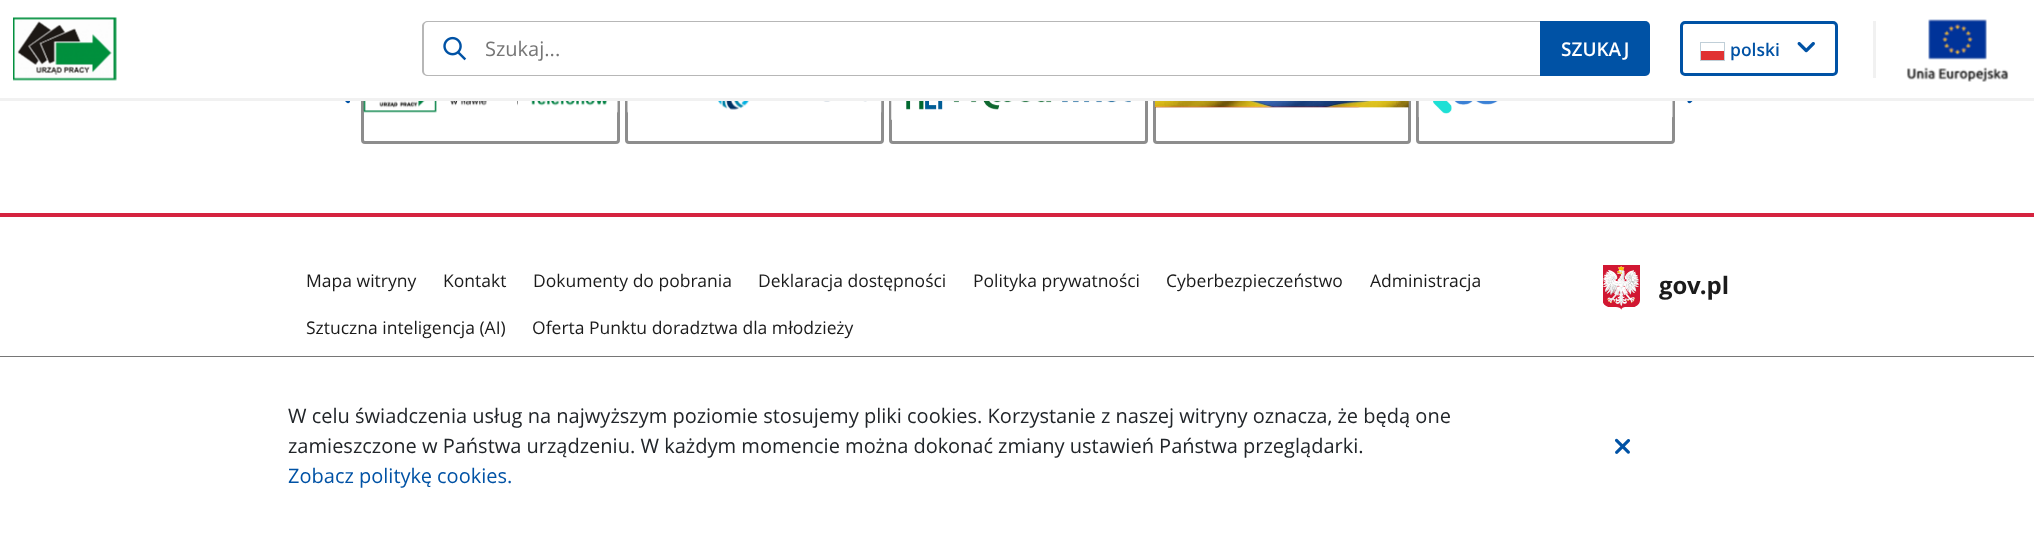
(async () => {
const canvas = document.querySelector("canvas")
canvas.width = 2034
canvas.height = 549
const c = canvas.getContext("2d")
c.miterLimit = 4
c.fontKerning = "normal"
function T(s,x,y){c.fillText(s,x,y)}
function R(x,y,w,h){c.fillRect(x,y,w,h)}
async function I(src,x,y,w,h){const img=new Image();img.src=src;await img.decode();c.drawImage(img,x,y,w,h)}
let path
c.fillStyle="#fff"
R(0,0,2034,549)
c.beginPath()
c.roundRect(362.5,36.5,256,106,2.5)
c.strokeStyle="#8d8d8d"
c.lineWidth=3
c.stroke()
await I("1.png",363,101,255,12)
c.beginPath()
c.roundRect(626.5,36.5,256,106,2.5)
c.stroke()
await I("2.png",627,101,255,12)
c.beginPath()
c.roundRect(890.5,36.5,256,106,2.5)
c.stroke()
await I("3.png",891,101,240,19)
c.beginPath()
c.roundRect(1154.5,36.5,255,106,2.5)
c.stroke()
await I("4.png",1155,101,254,7)
c.beginPath()
c.roundRect(1417.5,36.5,256,106,2.5)
c.stroke()
await I("5.png",1418,101,255,17)
await I("6.png",345,101,5,3)
await I("7.png",1687,101,6,3)
R(361,35,1314,63)
c.fillStyle="#f1f1f1"
R(0,98,2034,3)
await I("8.png",13,17,104,64)
await I("9.png",443,36,24,25)
c.fillStyle="#b7b7b7"
path = new Path2D("M428 21h1112v55h-1112c-3 0-6-2-6-5v-45c0-3 3-5 6-5zm0 1h1112v53h-1112c-3 0-4-2-4-4v-45c0-2 1-4 4-4z")
c.fill(path,"evenodd")
c.font="20px Open Sans"
c.fillStyle="#767676"
T("Szukaj...",485,56)
c.fillStyle="#ced4da"
path = new Path2D("M1540 21h105c3 0 5 2 5 5v45c0 3-2 5-5 5h-105zm0 1h105c2 0 4 2 4 4v45c0 2-2 4-4 4h-105z")
c.fill(path,"evenodd")
c.fillStyle="#0052a5"
c.beginPath()
c.roundRect(1540,21,110,55,[0,5,5,0])
c.fill()
c.font="600 19px Open Sans"
c.fillStyle="#fff"
T("SZUKAJ",1561,56)
c.beginPath()
c.roundRect(1681.5,22.5,155,52,3.5)
c.strokeStyle="#0052a5"
c.stroke()
c.font="600 17.5px Open Sans"
c.fillStyle="#0052a5"
T("polski",1730,56)
c.fillStyle="#c0cfd8"
R(1700,42,25,19)
c.fillStyle="#fff"
R(1701,43,23,8)
c.fillStyle="#e03232"
R(1701,51,23,9)
await I("10.png",1797,42,18,11)
c.fillStyle="#f1f1f1"
R(1873,21,3,57)
await I("11.png",1906,19,103,63)
c.fillStyle="#d5233f"
R(0,213,2034,4)
c.font="17.5px Open Sans"
c.fillStyle="#1b1b1b"
T("Mapa witryny",306,287)
T("Kontakt",443,287)
T("Dokumenty do pobrania",533,287)
T("Deklaracja dostępności",758,287)
T("Polityka prywatności",973,287)
T("Cyberbezpieczeństwo",1166,287)
T("Administracja",1370,287)
T("Sztuczna inteligencja (AI)",306,334)
T("Oferta Punktu doradztwa dla młodzieży",532,334)
await I("12.png",1603,265,37,45)
c.font="bold 24px Open Sans"
T("gov.pl",1659,294)
c.fillStyle="#767676"
R(0,356,2034,1)
c.font="20px Open Sans"
c.fillStyle="#212529"
T("W celu świadczenia usług na najwyższym poziomie stosujemy pliki cookies. Korzystanie z naszej witryny oznacza, że będą one",288,423)
T("zamieszczone w Państwa urządzeniu. W każdym momencie można dokonać zmiany ustawień Państwa przeglądarki.",288,453)
c.fillStyle="#0052a5"
T("Zobacz politykę cookies.",288,483)
await I("13.png",1614,438,17,16)
})()
